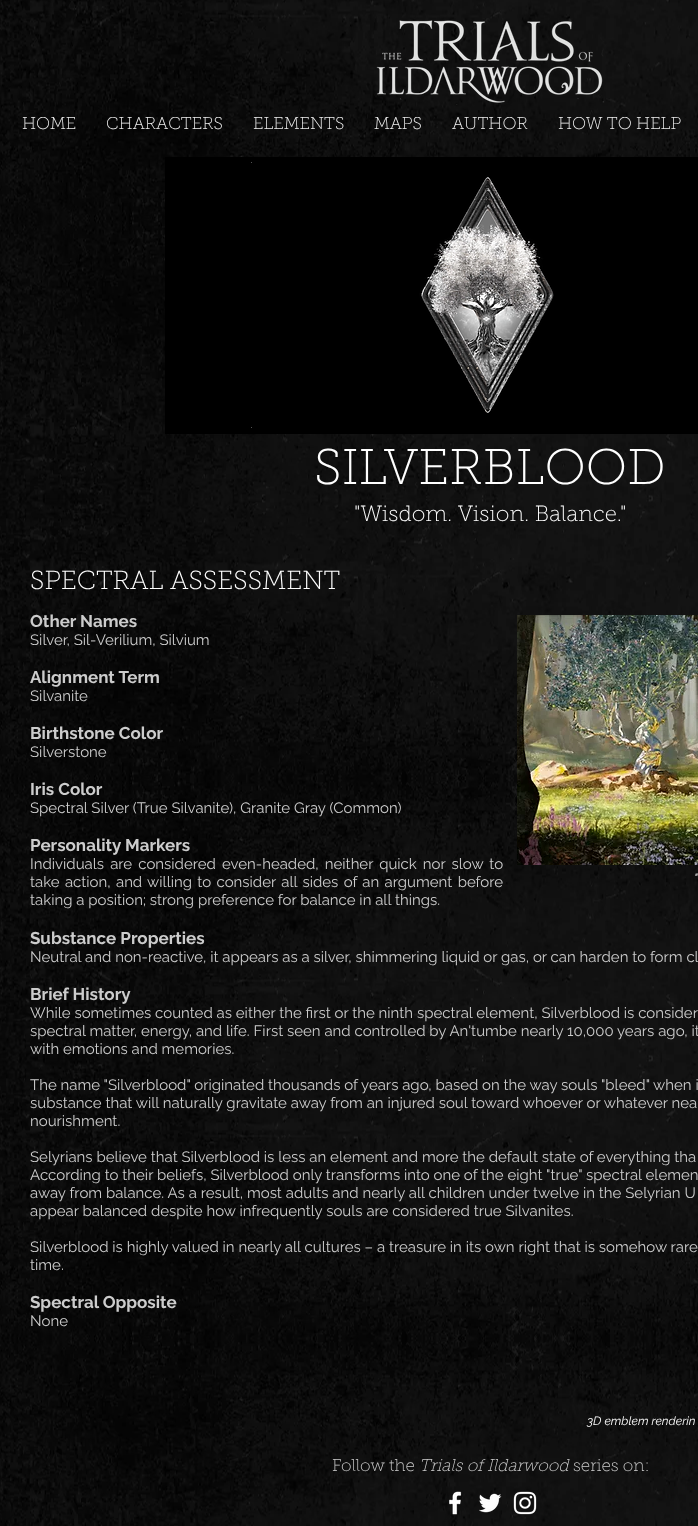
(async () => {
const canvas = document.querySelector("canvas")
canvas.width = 698
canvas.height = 1526
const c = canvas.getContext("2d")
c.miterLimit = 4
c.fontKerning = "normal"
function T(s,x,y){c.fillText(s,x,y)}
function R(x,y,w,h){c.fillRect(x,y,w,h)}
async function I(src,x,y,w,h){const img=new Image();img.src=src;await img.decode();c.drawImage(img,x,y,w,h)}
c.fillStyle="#fff"
R(0,0,698,1526)
await I("1.png",0,0,698,1526)
await I("2.png",376,20,228,85)
c.font="100 17px 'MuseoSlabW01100'"
c.fillStyle="#efefef"
T("HOME",22,129)
T("CHARACTERS",106,129)
T("ELEMENTS",253,129)
T("MAPS",374,129)
T("AUTHOR",452,129)
T("HOW TO HELP",558,129)
c.fillStyle="#000"
R(165,157,533,277)
await I("3.png",251,162,303,266)
c.font="100 50px 'MuseoSlabW01100'"
c.fillStyle="#fff"
T("SILVERBLOOD",314,484)
c.font="100 22px 'MuseoSlabW01100'"
T("\"Wisdom. Vision. Balance.\"",354,521)
c.font="100 26px 'MuseoSlabW01100'"
T("SPECTRAL ASSESSMENT",30,589)
c.font="bold 17px Raleway"
c.fillStyle="#ccc"
T("Other Names",30,627)
c.font="15px Raleway"
T("Silver, Sil-Verilium, Silvium",30,645)
c.font="bold 17px Raleway"
T("Alignment Term",30,683)
c.font="15px Raleway"
T("Silvanite",30,701)
c.font="bold 17px Raleway"
T("Birthstone Color",30,739)
c.font="15px Raleway"
T("Silverstone",30,757)
c.font="bold 17px Raleway"
T("Iris Color",30,795)
c.font="15px Raleway"
T("Spectral Silver (True Silvanite), Granite Gray (Common)",30,813)
c.font="bold 17px Raleway"
T("Personality Markers",30,851)
c.wordSpacing="2.25px"
c.font="15px Raleway"
T("Individuals are considered even-headed, neither quick nor slow to",30,869)
c.wordSpacing="1.5px"
T("take action, and willing to consider all sides of an argument before",30,887)
c.wordSpacing="0px"
T("taking a position; strong preference for balance in all things.",30,905)
await I("4.png",517,615,181,250)
c.font="italic 12px Raleway"
c.fillStyle="#fff"
T("\"",694,882)
c.font="bold 17px Raleway"
c.fillStyle="#ccc"
T("Substance Properties",30,944)
c.font="15px Raleway"
T("Neutral and non-reactive, it appears as a silver, shimmering liquid or gas, or can harden to form cl",30,962)
c.font="bold 17px Raleway"
T("Brief History",30,1000)
c.font="15px Raleway"
T("While sometimes counted as either the first or the ninth spectral element, Silverblood is consider",30,1018)
T("spectral matter, energy, and life. First seen and controlled by An'tumbe nearly 10,000 years ago, it",30,1036)
T("with emotions and memories.",30,1054)
T("The name \"Silverblood\" originated thousands of years ago, based on the way souls \"bleed\" when i",30,1090)
T("substance that will naturally gravitate away from an injured soul toward whoever or whatever nea",30,1108)
T("nourishment.",30,1126)
T("Selyrians believe that Silverblood is less an element and more the default state of everything tha",30,1162)
T("According to their beliefs, Silverblood only transforms into one of the eight \"true\" spectral elemen",30,1180)
T("away from balance. As a result, most adults and nearly all children under twelve in the Selyrian U",30,1198)
T("appear balanced despite how infrequently souls are considered true Silvanites.",30,1216)
T("Silverblood is highly valued in nearly all cultures – a treasure in its own right that is somehow rare",30,1252)
T("time.",30,1270)
c.font="bold 17px Raleway"
T("Spectral Opposite",30,1308)
c.font="15px Raleway"
T("None",30,1326)
c.font="italic 12px Raleway"
c.fillStyle="#fff"
T("3D emblem renderin",587,1425)
c.font="100 17px 'MuseoSlabW01100'"
c.fillStyle="#ccc"
T("Follow the",332,1471)
c.font="italic 100 17px 'MuseoSlabW01100'"
T("Trials of Ildarwood",419,1471)
c.font="100 17px 'MuseoSlabW01100'"
T("series on:",573,1471)
await I("5.png",449,1491,13,24)
await I("6.png",479,1493,23,20)
await I("7.png",513,1491,24,24)
})()
